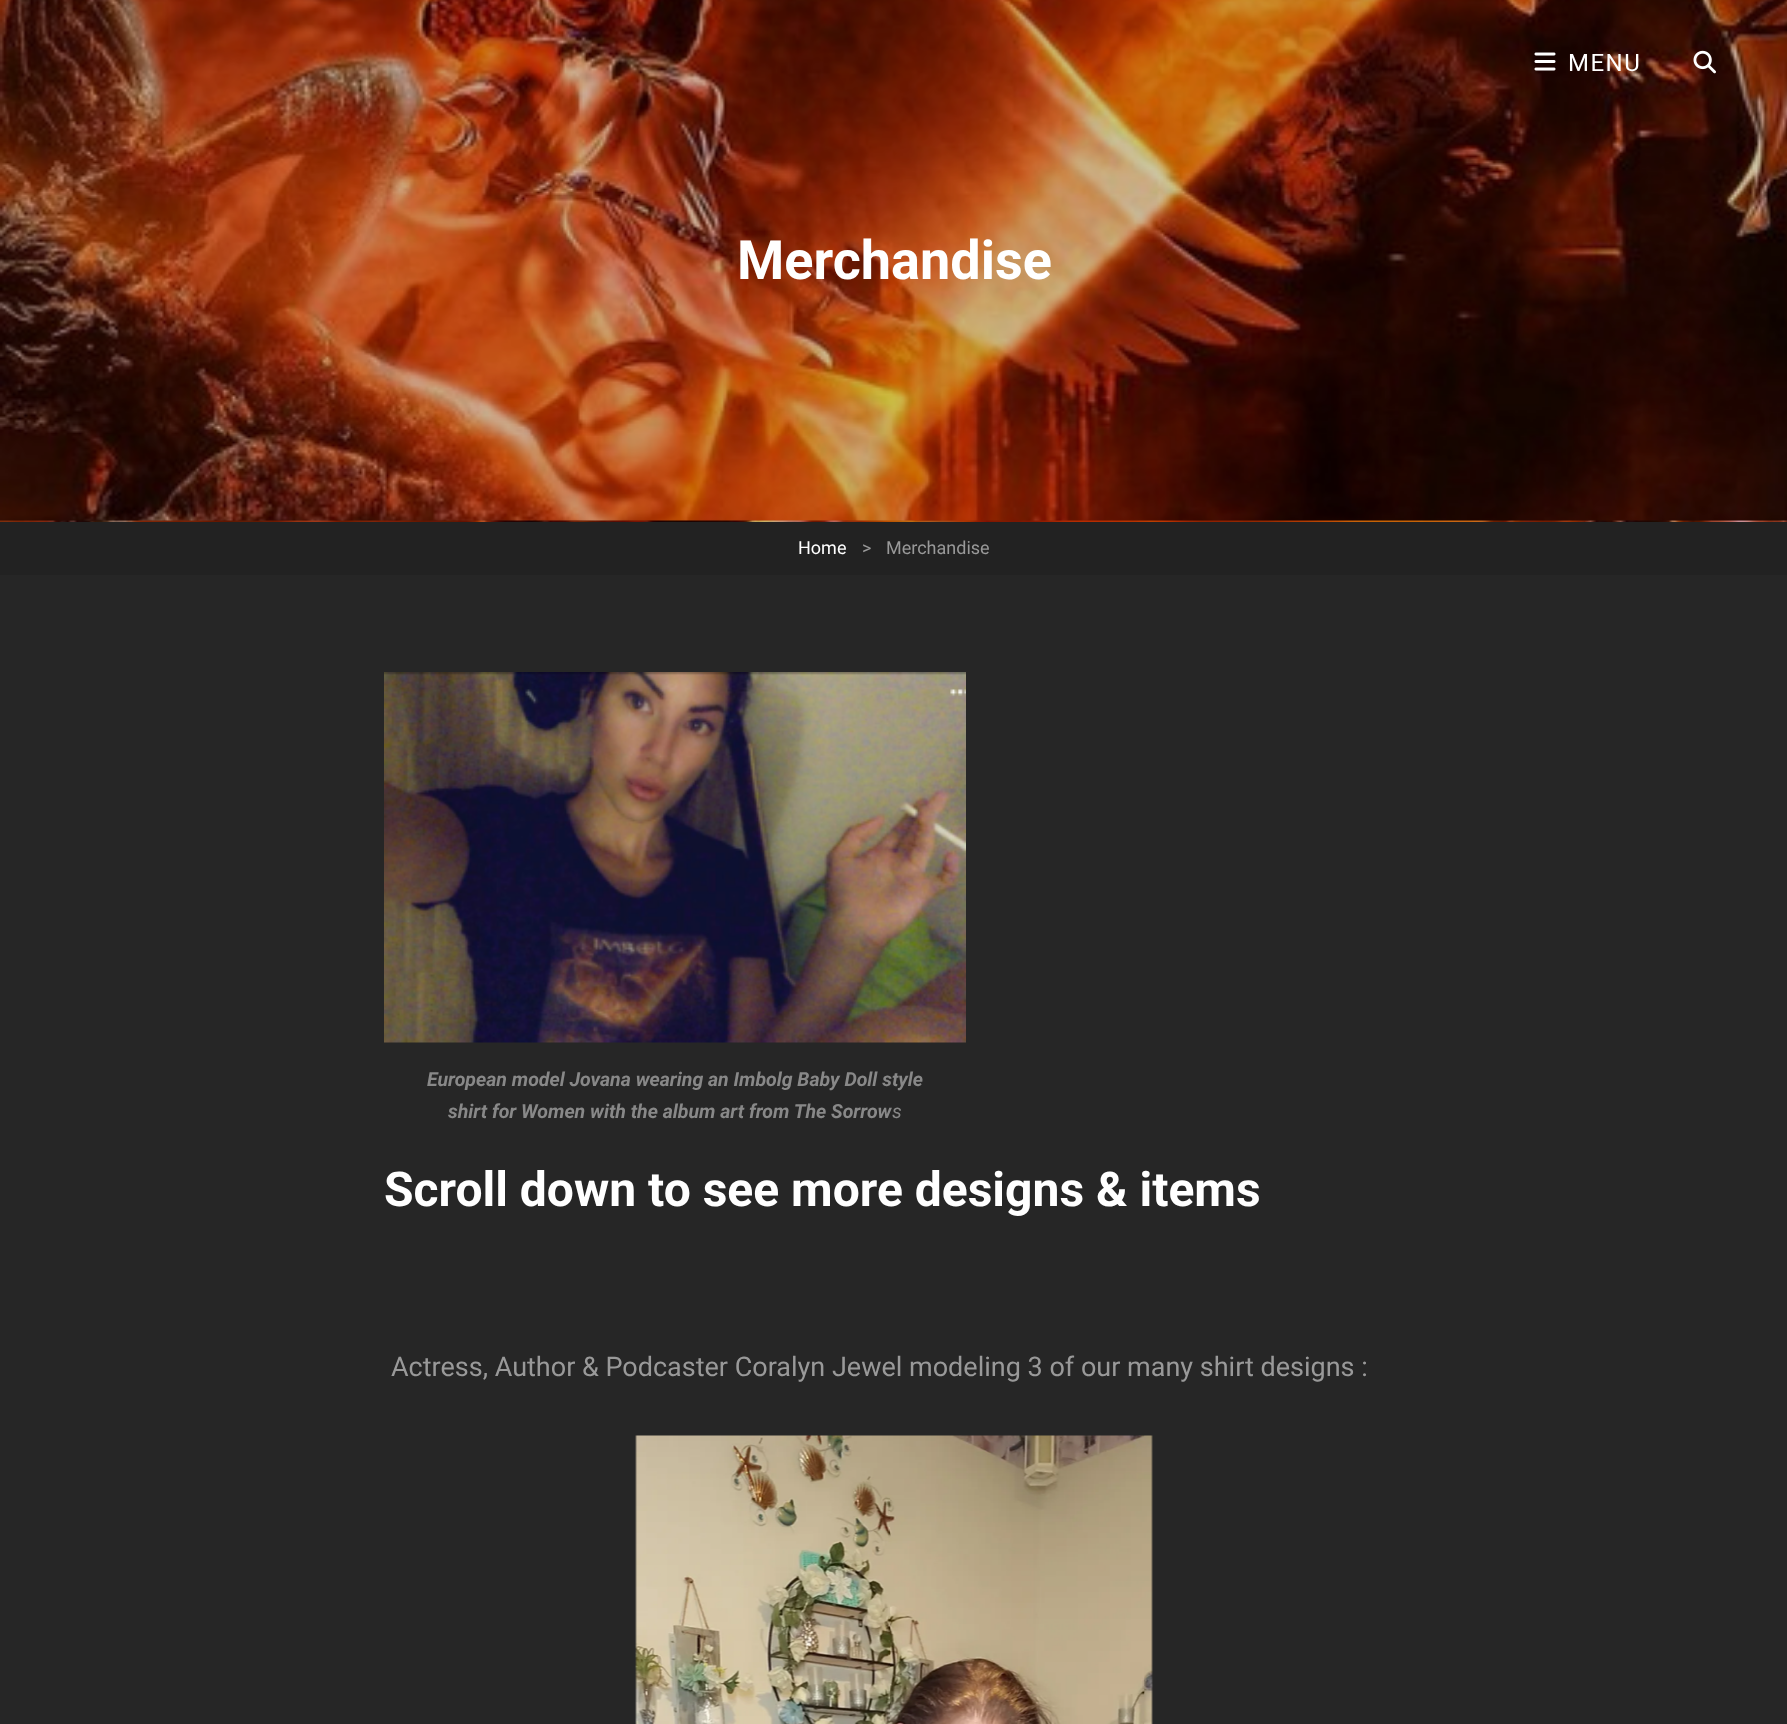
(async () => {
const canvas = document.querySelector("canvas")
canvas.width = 1787
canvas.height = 1724
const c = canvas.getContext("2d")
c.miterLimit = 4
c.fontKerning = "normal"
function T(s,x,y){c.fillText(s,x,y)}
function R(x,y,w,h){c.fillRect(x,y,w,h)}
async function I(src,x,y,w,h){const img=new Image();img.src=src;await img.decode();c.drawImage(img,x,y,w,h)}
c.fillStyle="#262626"
R(0,0,1787,1724)
await I("4.png",0,520,1787,2)
await I("3.png",0,0,1787,521)
await I("1.png",1534,52,22,19)
c.letterSpacing="1.5px"
c.font="24px Roboto"
c.fillStyle="#fff"
T("MENU",1568,71)
await I("2.png",1693,50,23,24)
c.letterSpacing="0px"
c.font="bold 54px Roboto"
T("Merchandise",737,279)
c.fillStyle="#222"
R(0,522,1787,53)
c.font="18px Roboto"
c.fillStyle="#fff"
T("Home",798,554)
c.fillStyle="#999"
T(">",862,554)
T("Merchandise",886,554)
await I("5.png",384,672,582,371)
c.font="italic bold 19.5px Roboto"
c.fillStyle="#888"
T("European model Jovana wearing an Imbolg Baby Doll style",427,1086)
T("shirt for Women with the album art from The Sorrow",448,1118)
c.font="italic 19.5px Roboto"
T("s",892,1118)
c.font="bold 48px Roboto"
c.fillStyle="#fff"
T("Scroll down to see more designs & items",384,1206)
c.font="27px Roboto"
c.fillStyle="#999"
T("Actress, Author & Podcaster Coralyn Jewel modeling 3 of our many shirt designs :",391,1376)
await I("6.png",635,1435,518,289)
})()
